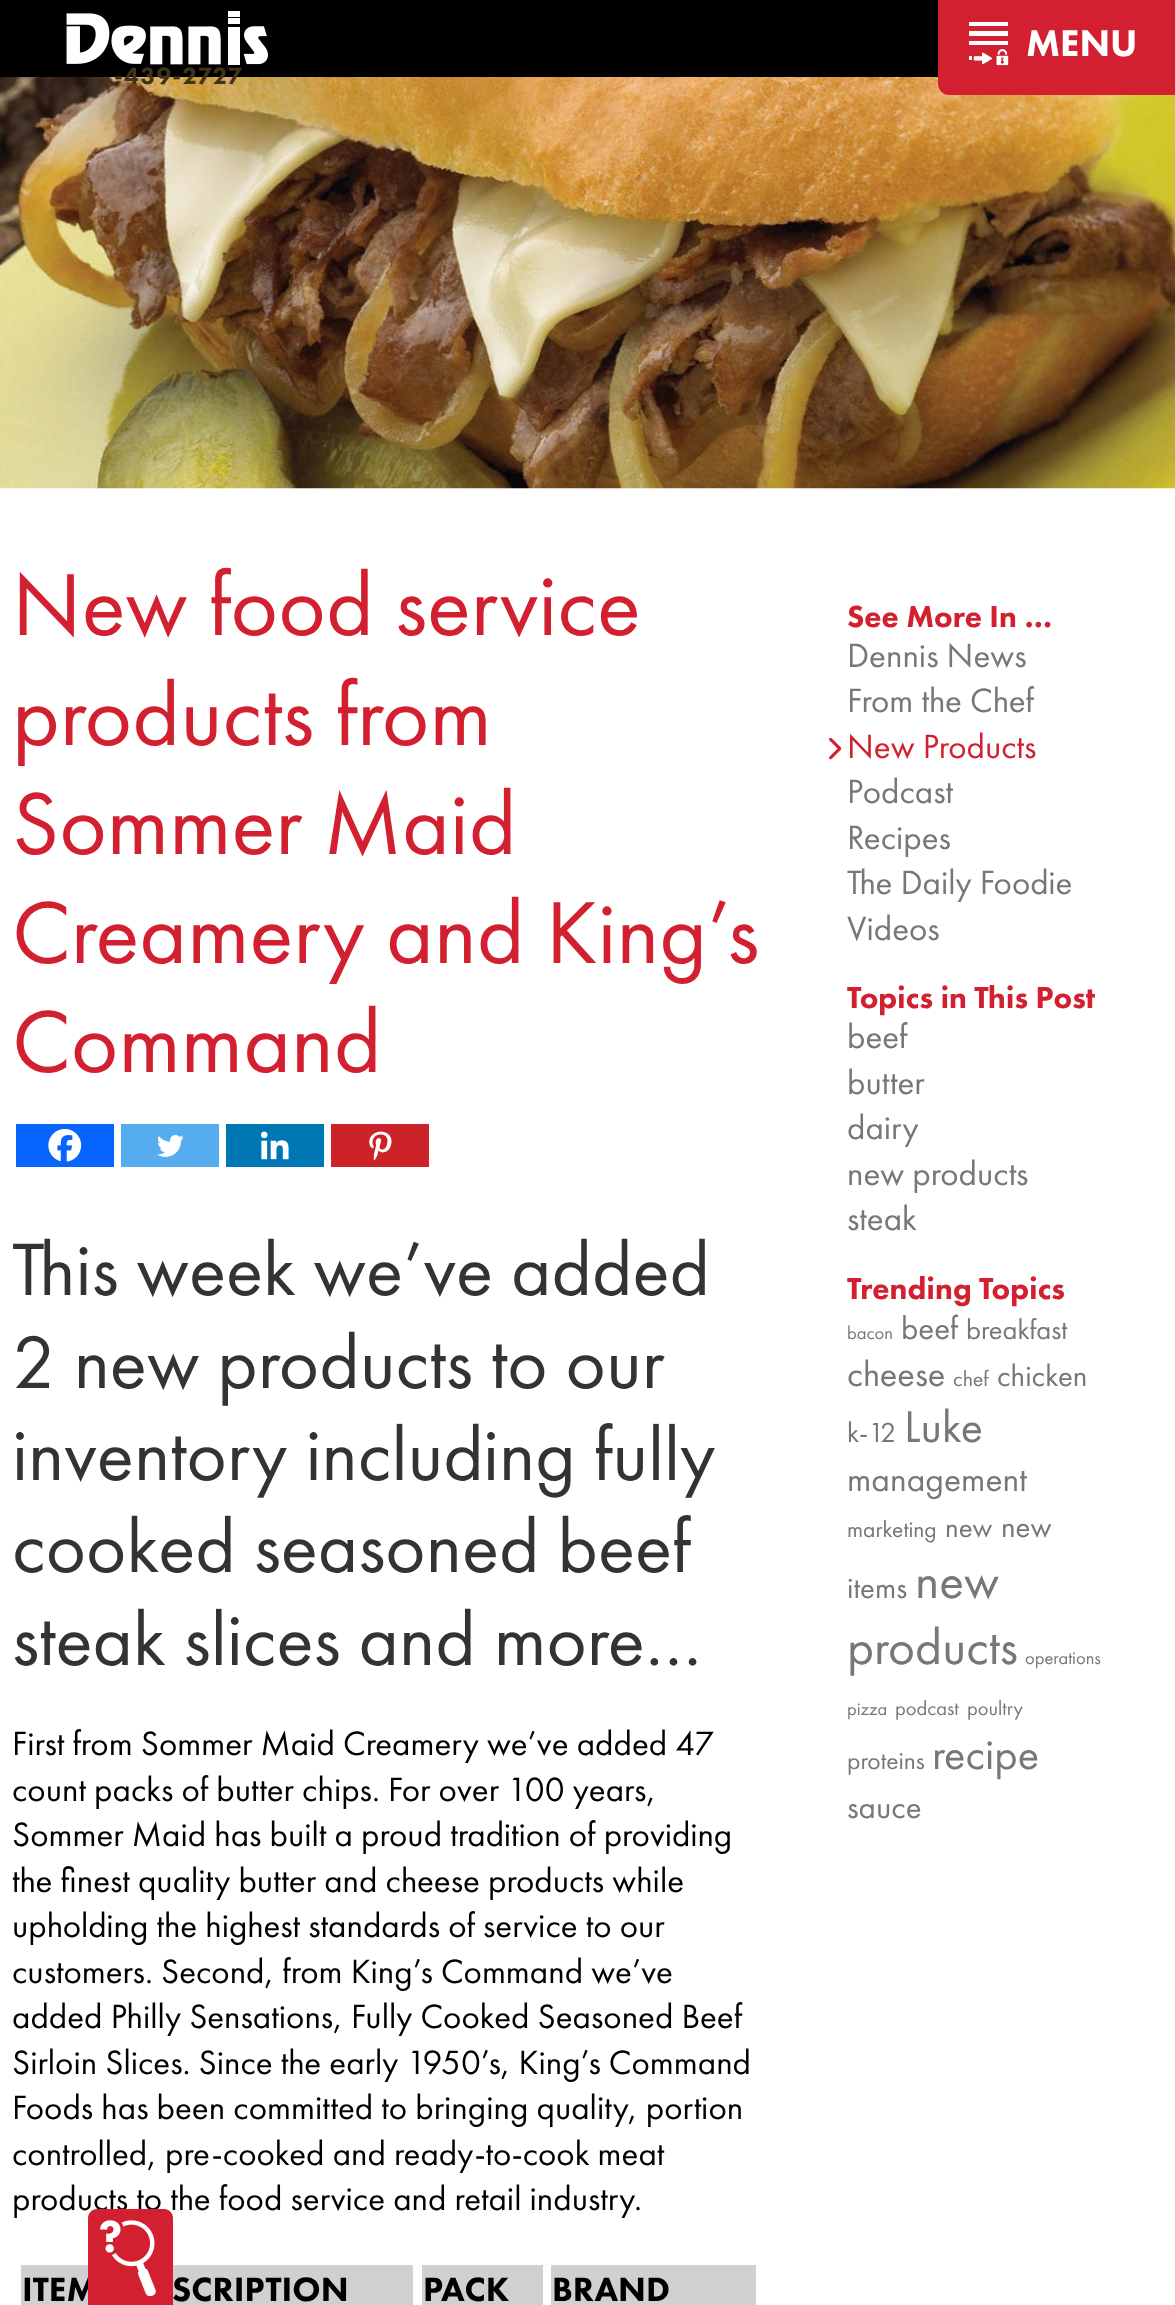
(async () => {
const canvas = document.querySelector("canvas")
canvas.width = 1175
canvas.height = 2305
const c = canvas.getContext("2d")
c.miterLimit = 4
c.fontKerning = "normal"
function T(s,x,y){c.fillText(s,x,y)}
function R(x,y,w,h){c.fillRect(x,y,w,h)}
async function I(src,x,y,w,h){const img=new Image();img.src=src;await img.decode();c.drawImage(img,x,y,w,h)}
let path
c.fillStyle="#fff"
R(0,0,1175,2305)
c.fillStyle="#000"
R(0,0,938,77)
await I("3.png",0,77,1175,412)
c.fillStyle="#d22030"
path = new Path2D("M949-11h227v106h-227c-6 0-11-5-11-11v-84c0-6 5-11 11-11z")
c.fill(path)
await I("1.png",969,22,40,44)
c.font="900 38.5px Futura PT"
c.fillStyle="#fff"
T("MENU",1026,56)
await I("2.png",66,11,202,54)
c.letterSpacing="1.25px"
c.font="900 24.5px Futura PT"
c.fillStyle="#40321b"
T("-439-2727",114,84)
c.letterSpacing="0px"
c.font="91px Futura PT"
c.fillStyle="#d22030"
T("New food service",12,635)
T("products from",12,745)
T("Sommer Maid",12,854)
T("Creamery and King’s",12,963)
T("Command",12,1072)
c.fillStyle="#0765fe"
R(16,1124,98,43)
await I("4.png",48,1129,34,33)
c.fillStyle="#55acee"
R(121,1124,98,43)
await I("5.png",157,1135,27,22)
c.fillStyle="#0077b5"
R(226,1124,98,43)
await I("6.png",261,1131,28,29)
c.fillStyle="#cc2329"
R(331,1124,98,43)
await I("7.png",369,1131,23,30)
c.font="77px Futura PT"
c.fillStyle="#333"
T("This week we’ve added",12,1295)
T("2 new products to our",12,1388)
T("inventory including fully",12,1480)
T("cooked seasoned beef",12,1572)
T("steak slices and more…",12,1665)
c.font="35px Futura PT"
c.fillStyle="#000"
T("First from Sommer Maid Creamery we’ve added 47",12,1755)
T("count packs of butter chips. For over 100 years,",12,1801)
T("Sommer Maid has built a proud tradition of providing",12,1846)
T("the finest quality butter and cheese products while",12,1892)
T("upholding the highest standards of service to our",12,1937)
T("customers. Second, from King’s Command we’ve",12,1983)
T("added Philly Sensations, Fully Cooked Seasoned Beef",12,2028)
T("Sirloin Slices. Since the early 1950’s, King’s Command",12,2074)
T("Foods has been committed to bringing quality, portion",12,2119)
T("controlled, pre-cooked and ready-to-cook meat",12,2165)
T("products to the food service and retail industry.",12,2210)
c.fillStyle="#d0d0d0"
R(21,2265,67,40)
c.font="900 35px Futura PT"
c.fillStyle="#000"
T("ITEM",22,2301)
c.fillStyle="#d0d0d0"
R(173,2265,240,40)
c.fillStyle="#000"
T("SCRIPTION",172,2301)
c.fillStyle="#d0d0d0"
R(422,2265,121,40)
c.fillStyle="#000"
T("PACK",423,2301)
c.fillStyle="#d0d0d0"
R(551,2265,205,40)
c.fillStyle="#000"
T("BRAND",552,2301)
c.font="900 31.5px Futura PT"
c.fillStyle="#d22030"
T("See More In …",847,627)
c.font="35px Futura PT"
c.fillStyle="#777"
T("Dennis News",847,667)
T("From the Chef",847,712)
await I("8.png",829,737,13,23)
c.fillStyle="#d22030"
T("New Products",847,758)
c.fillStyle="#777"
T("Podcast",847,803)
T("Recipes",847,849)
T("The Daily Foodie",847,894)
T("Videos",847,940)
c.font="900 31.5px Futura PT"
c.fillStyle="#d22030"
T("Topics in This Post",847,1008)
c.font="35px Futura PT"
c.fillStyle="#777"
T("beef",847,1048)
T("butter",847,1094)
T("dairy",847,1139)
T("new products",847,1185)
T("steak",847,1230)
c.font="900 31.5px Futura PT"
c.fillStyle="#d22030"
T("Trending Topics",847,1299)
c.font="18.5px Futura PT"
c.fillStyle="#777"
T("bacon",847,1339)
c.font="33px Futura PT"
T("beef",901,1339)
c.font="28.5px Futura PT"
T("breakfast",966,1339)
c.font="36.5px Futura PT"
T("cheese",847,1386)
c.font="22px Futura PT"
T("chef",953,1386)
c.font="31px Futura PT"
T("chicken",997,1386)
c.font="28.5px Futura PT"
T("k-12",847,1442)
c.font="46px Futura PT"
T("Luke",904,1442)
c.font="35.5px Futura PT"
T("management",847,1491)
c.font="23.5px Futura PT"
T("marketing",847,1537)
c.font="29px Futura PT"
T("new",945,1537)
c.font="31px Futura PT"
T("new",1001,1537)
T("items",847,1598)
c.font="51.5px Futura PT"
T("new",915,1598)
T("products",847,1664)
c.font="18.5px Futura PT"
T("operations",1025,1664)
T("pizza",847,1715)
c.font="20.5px Futura PT"
T("podcast",895,1715)
T("poultry",967,1715)
c.font="25.5px Futura PT"
T("proteins",847,1769)
c.font="44.5px Futura PT"
T("recipe",932,1769)
c.font="33px Futura PT"
T("sauce",847,1818)
c.fillStyle="#d22030"
path = new Path2D("M97 2209h67c5 0 9 4 9 9v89h-85v-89c0-5 4-9 9-9z")
c.fill(path)
await I("9.png",100,2220,56,76)
})()
